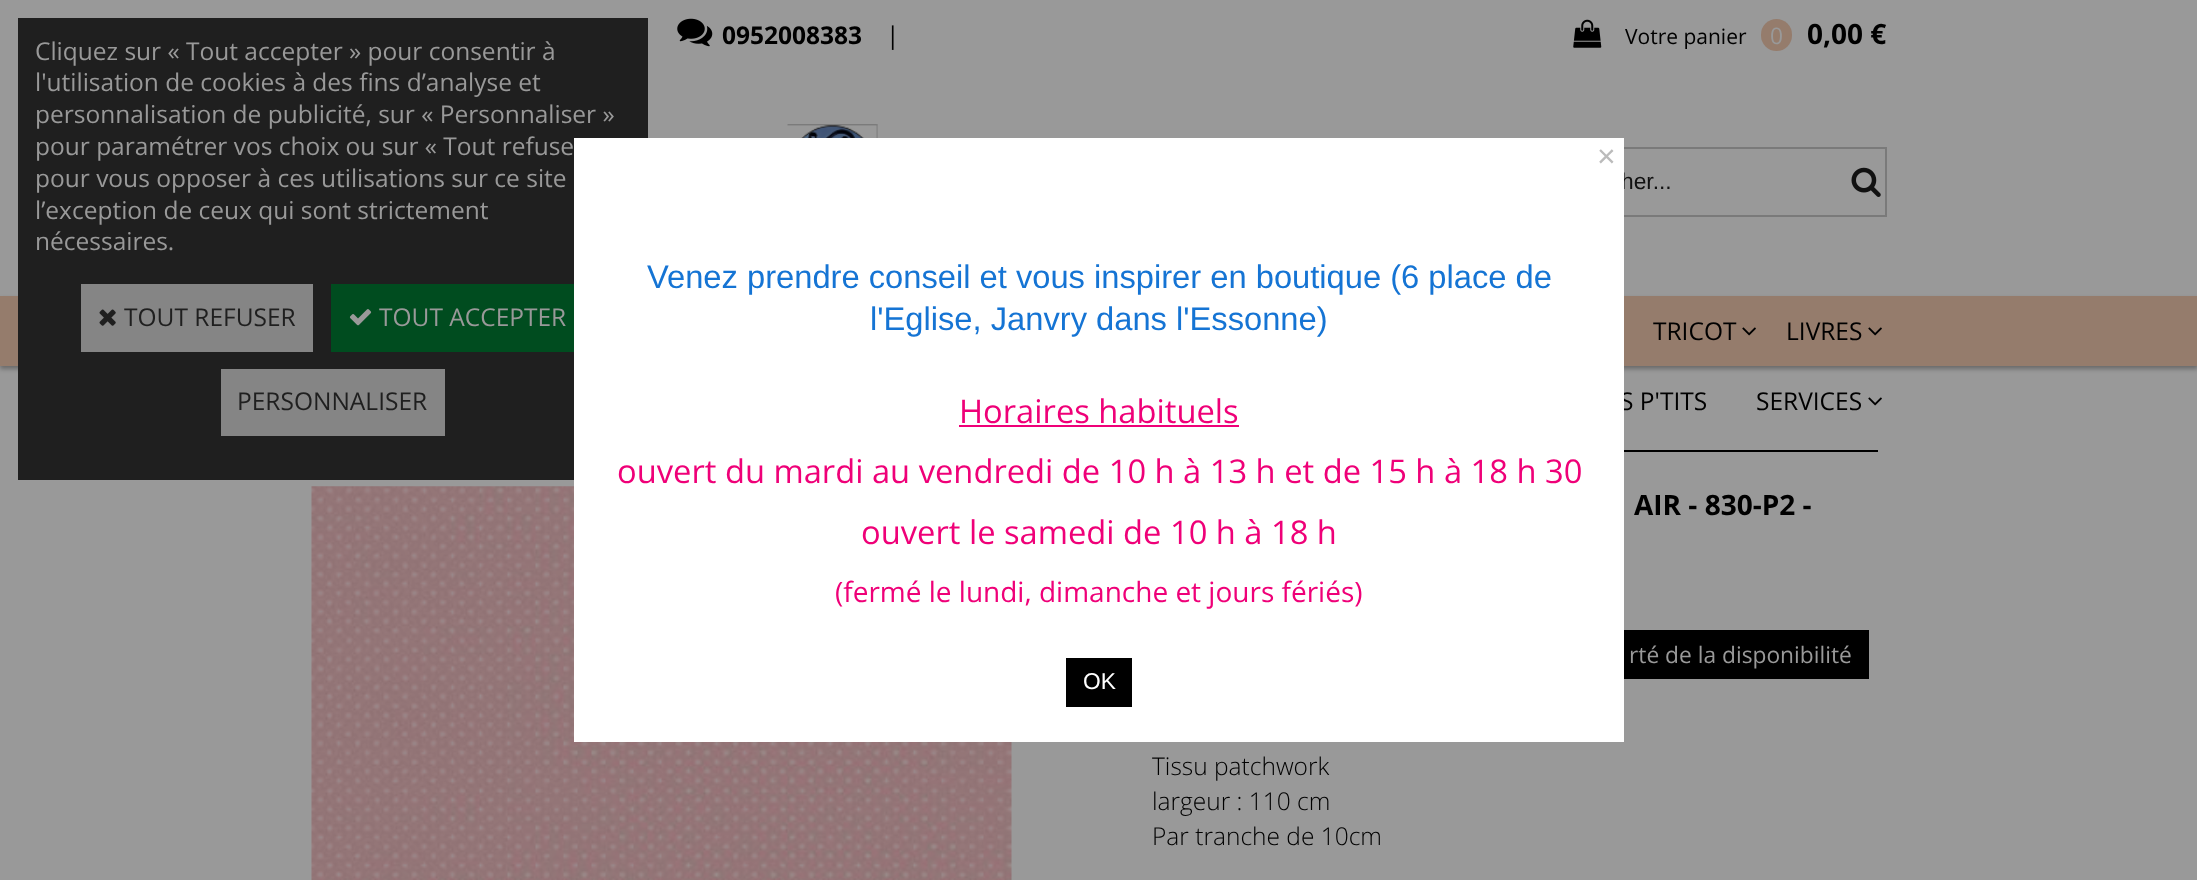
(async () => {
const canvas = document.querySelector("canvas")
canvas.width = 2197
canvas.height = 880
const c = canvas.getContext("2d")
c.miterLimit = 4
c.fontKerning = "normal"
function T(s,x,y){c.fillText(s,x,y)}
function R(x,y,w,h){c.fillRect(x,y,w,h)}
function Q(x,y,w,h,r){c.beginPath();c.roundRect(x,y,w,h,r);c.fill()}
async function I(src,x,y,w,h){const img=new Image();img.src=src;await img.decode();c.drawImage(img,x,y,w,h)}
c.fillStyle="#999"
R(0,0,2197,880)
c.fillStyle="#0000004d"
c.filter="blur(2px)"
c.beginPath()
c.rect(0,299,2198,70)
c.fill()
c.filter="none"
c.fillStyle="#957c6c"
R(0,296,2197,70)
c.fillStyle="#1f1f1f"
R(18,18,630,462)
c.font="24.5px Open Sans"
c.fillStyle="#999"
T("Cliquez sur « Tout accepter » pour consentir à",35,60)
T("l'utilisation de cookies à des fins d’analyse et",35,91)
T("personnalisation de publicité, sur « Personnaliser »",35,123)
T("pour paramétrer vos choix ou sur « Tout refuse",35,155)
T("pour vous opposer à ces utilisations sur ce site",35,187)
T("l’exception de ceux qui sont strictement",35,219)
T("nécessaires.",35,250)
c.fillStyle="#858585"
R(81,284,232,68)
await I("1.png",99,309,17,17)
c.fillStyle="#1f1f1f"
T("TOUT REFUSER",124,326)
c.fillStyle="#004c1f"
R(331,284,243,68)
await I("2.png",349,309,23,17)
c.fillStyle="#999"
T("TOUT ACCEPTER",379,326)
c.fillStyle="#858585"
R(221,369,224,67)
c.fillStyle="#1f1f1f"
T("PERSONNALISER",237,410)
await I("3.png",677,18,36,29)
c.font="bold 24.5px Open Sans"
c.fillStyle="#000"
T("0952008383",722,44)
c.font="24.5px Open Sans"
T("|",886,44)
await I("4.png",1573,19,29,29)
c.font="21px Open Sans"
T("Votre panier",1625,44)
c.fillStyle="#957c6c"
Q(1761,19,31,32,15.5)
c.font="22.75px Open Sans"
c.fillStyle="#999"
T("0",1770,44)
c.font="bold 28px Open Sans"
c.fillStyle="#000"
T("0,00 €",1807,44)
await I("5.png",787,124,91,14)
c.strokeStyle="#7a7a7a"
c.lineWidth=2
c.strokeRect(1518,148,368,68)
c.font="22.75px Liberation Sans"
c.fillStyle="#111"
T("her...",1621,189)
await I("6.png",1851,167,30,30)
c.font="24.5px Open Sans"
c.fillStyle="#000"
T("TRICOT",1653,340)
await I("7.png",1742,327,14,9)
T("LIVRES",1786,340)
await I("7.png",1868,327,14,9)
T("S P'TITS",1620,410)
T("SERVICES",1756,410)
await I("8.png",1868,397,14,9)
R(1624,450,254,2)
await I("9.png",311,486,701,394)
c.font="bold 28px Open Sans"
T("AIR - 830-P2 -",1634,515)
R(1624,630,245,49)
c.font="22.75px Open Sans"
c.fillStyle="#999"
T("rté de la disponibilité",1629,663)
c.font="300 24.5px Open Sans"
c.fillStyle="#000"
T("Tissu patchwork",1152,775)
T("largeur : 110 cm",1152,810)
T("Par tranche de 10cm",1152,845)
c.fillStyle="#fff"
R(574,138,1050,604)
c.font="32px Liberation Sans"
c.fillStyle="#bbb"
T("×",1597,167)
c.font="32.7px Liberation Sans"
c.fillStyle="#1574d4"
T("Venez prendre conseil et vous inspirer en boutique (6 place de",647,288)
T("l'Eglise, Janvry dans l'Essonne)",870,330)
c.font="32.7px Open Sans"
c.fillStyle="#ef0078"
T("Horaires habituels",959,423)
R(959,425,280,2)
T("ouvert du mardi au vendredi de 10 h à 13 h et de 15 h à 18 h 30",617,483)
T("ouvert le samedi de 10 h à 18 h",861,544)
c.font="28px Open Sans"
T("(fermé le lundi, dimanche et jours fériés)",835,602)
c.fillStyle="#000"
R(1066,658,66,49)
c.font="22.75px Liberation Sans"
c.fillStyle="#fff"
T("OK",1083,689)
})()
